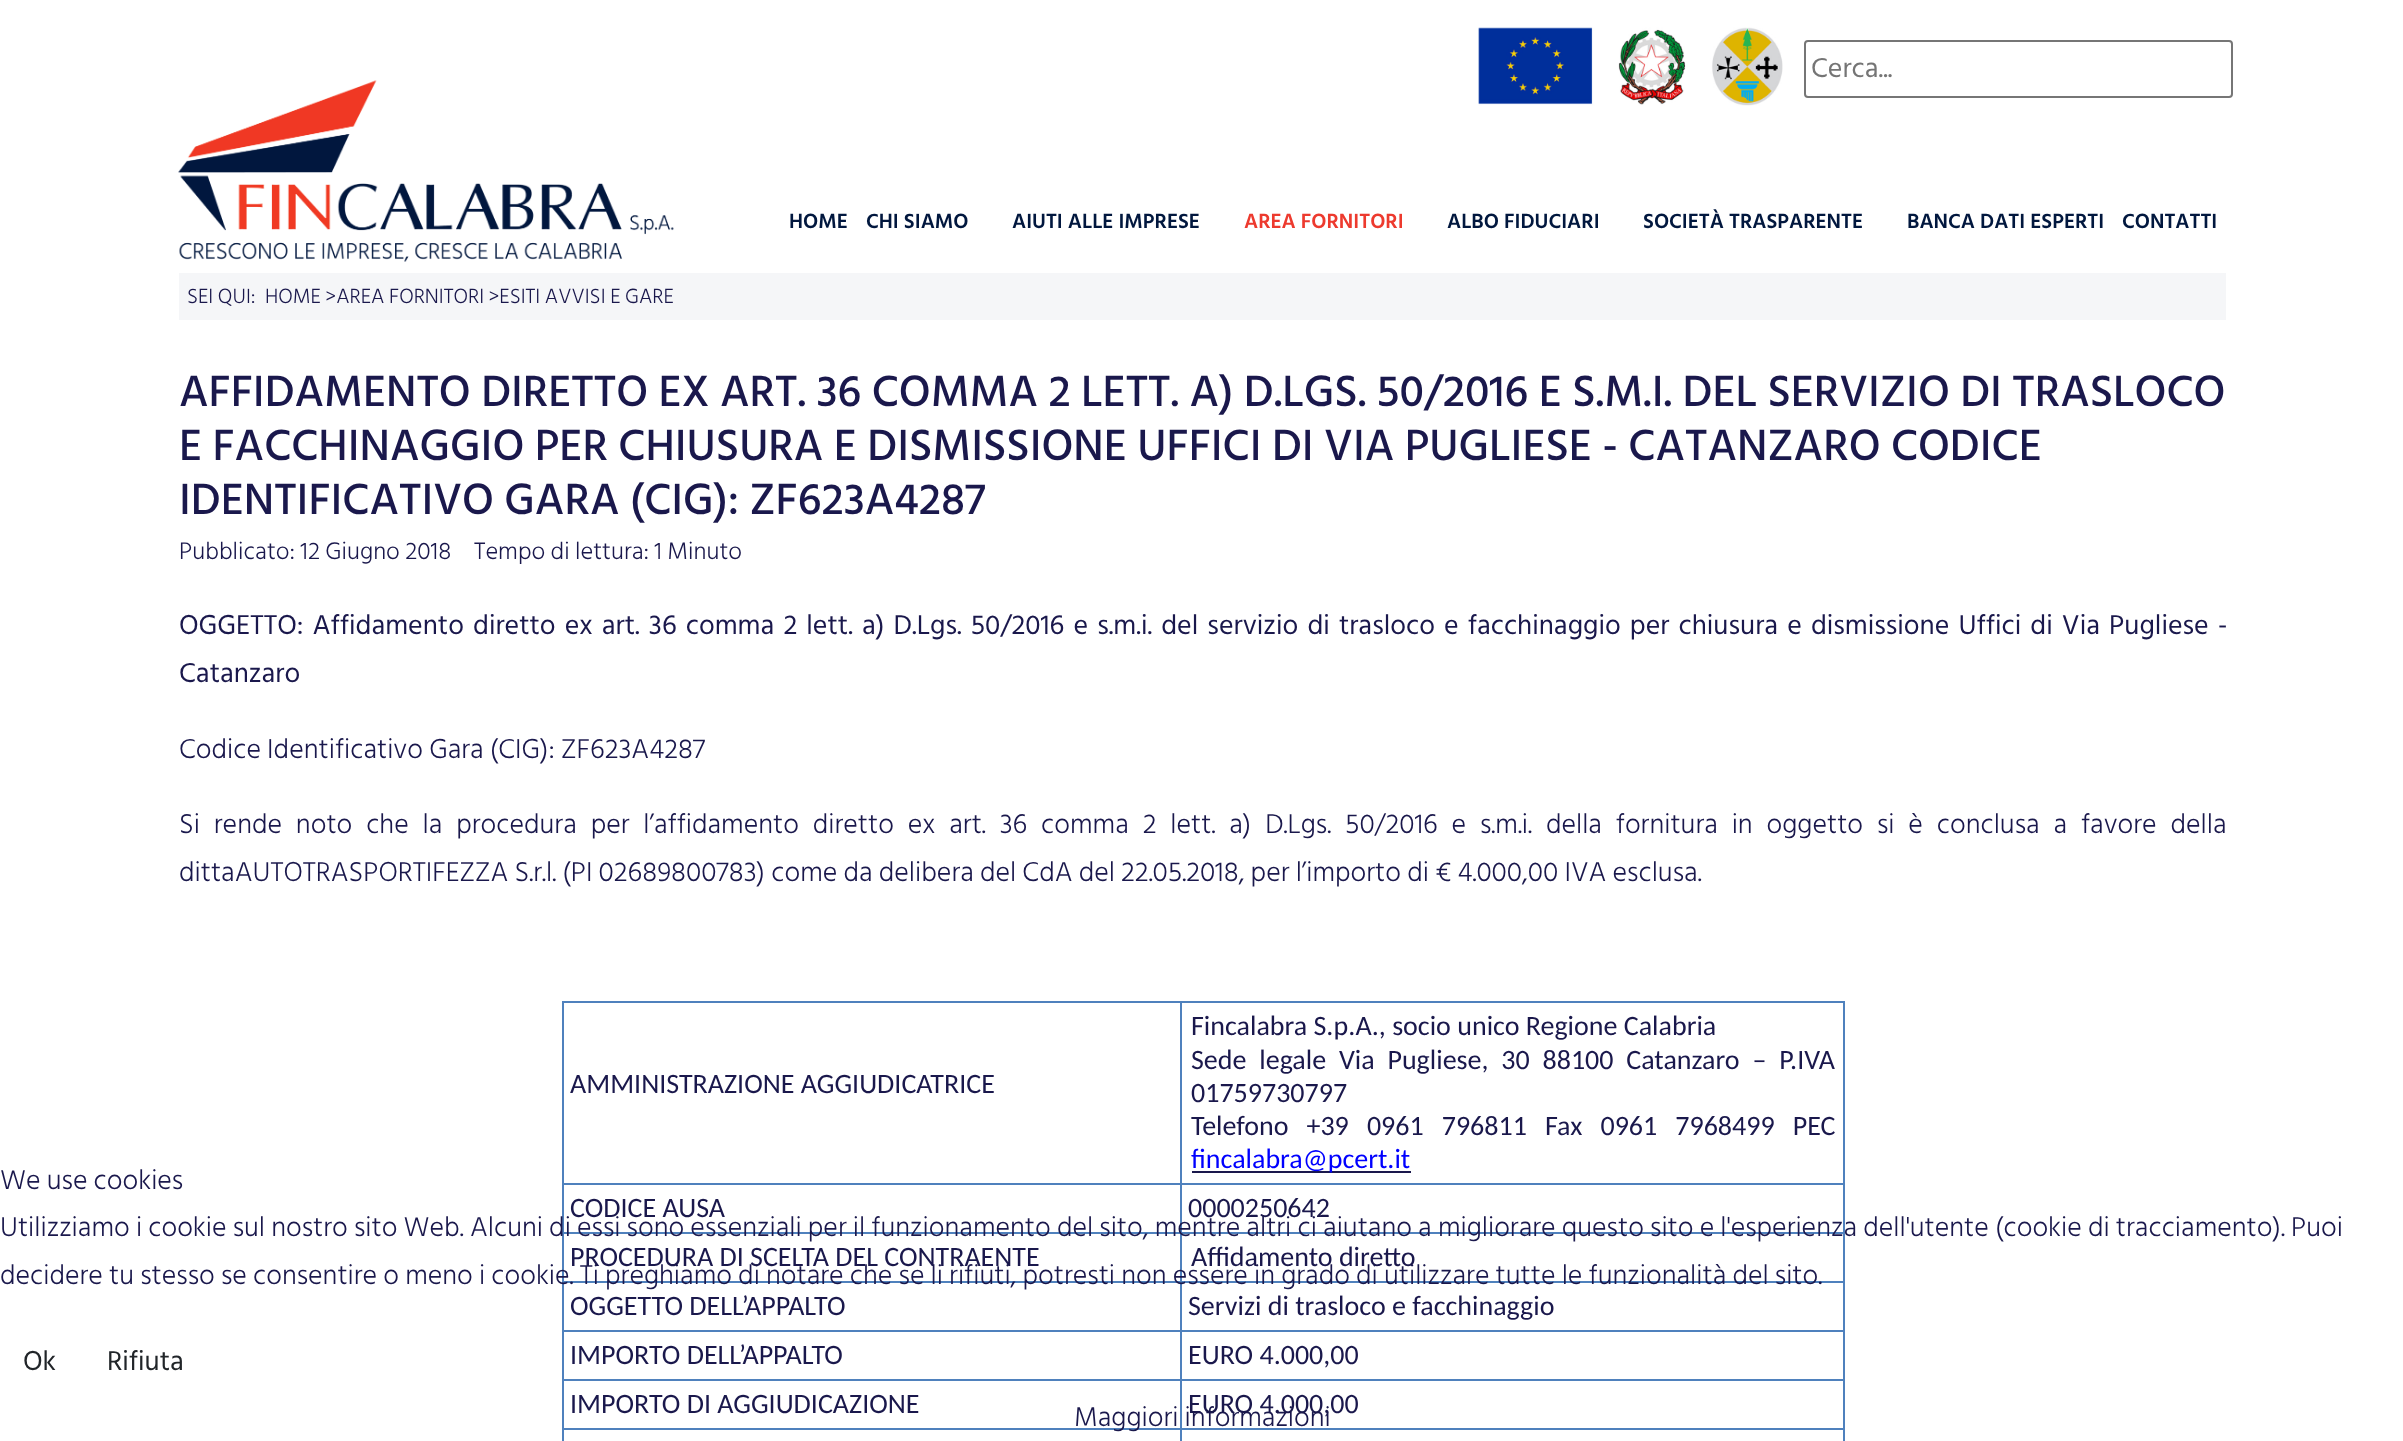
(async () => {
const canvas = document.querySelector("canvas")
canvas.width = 2403
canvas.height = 1441
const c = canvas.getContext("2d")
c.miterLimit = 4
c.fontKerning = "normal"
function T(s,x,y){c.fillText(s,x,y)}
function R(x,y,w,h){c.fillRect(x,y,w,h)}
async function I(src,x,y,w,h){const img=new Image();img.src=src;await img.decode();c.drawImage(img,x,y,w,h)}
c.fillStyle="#fff"
R(0,0,2403,1441)
await I("1.png",1478,27,305,79)
c.beginPath()
c.roundRect(1805,41,427,56,3)
c.strokeStyle="#767676"
c.lineWidth=2
c.stroke()
c.font="28px Hind Siliguri"
c.fillStyle="#757575"
T("Cerca...",1811,77)
await I("2.png",178,80,496,182)
c.font="600 21px Hind Siliguri"
c.fillStyle="#01173e"
T("HOME",789,228)
T("CHI SIAMO",866,228)
T("AIUTI ALLE IMPRESE",1012,228)
c.fillStyle="#ed3a2e"
T("AREA FORNITORI",1244,228)
c.fillStyle="#01173e"
T("ALBO FIDUCIARI",1447,228)
T("SOCIETÀ TRASPARENTE",1643,228)
T("BANCA DATI ESPERTI",1907,228)
T("CONTATTI",2122,228)
c.fillStyle="#f5f6f8"
R(179,273,2047,47)
c.font="300 21px Hind Siliguri"
c.fillStyle="#1a184c"
T("SEI QUI:",187,303)
T("HOME >AREA FORNITORI >ESITI AVVISI E GARE",265,303)
c.font="500 44.8px Hind Siliguri"
T("AFFIDAMENTO DIRETTO EX ART. 36 COMMA 2 LETT. A) D.LGS. 50/2016 E S.M.I. DEL SERVIZIO DI TRASLOCO",179,406)
T("E FACCHINAGGIO PER CHIUSURA E DISMISSIONE UFFICI DI VIA PUGLIESE - CATANZARO CODICE",179,460)
T("IDENTIFICATIVO GARA (CIG): ZF623A4287",179,514)
c.font="300 24.5px Hind Siliguri"
T("Pubblicato: 12 Giugno 2018",179,559)
T("Tempo di lettura: 1 Minuto",474,559)
c.wordSpacing="2.8px"
c.font="28px Hind Siliguri"
T("OGGETTO: Affidamento diretto ex art. 36 comma 2 lett. a) D.Lgs. 50/2016 e s.m.i. del servizio di trasloco e facchinaggio per chiusura e dismissione Uffici di Via Pugliese -",179,634)
c.wordSpacing="0px"
T("Catanzaro",179,682)
c.font="300 28px Hind Siliguri"
T("Codice Identificativo Gara (CIG): ZF623A4287",179,758)
c.wordSpacing="7.7px"
T("Si rende noto che la procedura per l’affidamento diretto ex art. 36 comma 2 lett. a) D.Lgs. 50/2016 e s.m.i. della fornitura in oggetto si è conclusa a favore della",179,833)
c.wordSpacing="0px"
T("dittaAUTOTRASPORTIFEZZA S.r.l. (PI 02689800783) come da delibera del CdA del 22.05.2018, per l’importo di € 4.000,00 IVA esclusa.",179,881)
c.fillStyle="#4f81bd"
R(1180,1001,665,2)
R(1180,1183,665,2)
R(1180,1232,665,2)
R(1180,1281,665,2)
R(1180,1330,665,2)
R(1180,1379,665,2)
R(1180,1428,665,2)
R(1180,1428,2,13)
R(562,1428,619,2)
R(1180,1379,2,51)
R(562,1379,619,2)
R(1180,1330,2,51)
R(562,1330,619,2)
R(1180,1281,2,51)
R(562,1281,619,2)
R(1180,1232,2,51)
R(562,1232,619,2)
R(1180,1183,2,51)
R(562,1183,619,2)
R(1180,1001,2,184)
R(562,1001,619,2)
R(562,1428,2,13)
R(562,1379,2,51)
R(562,1330,2,51)
R(562,1281,2,51)
R(562,1232,2,51)
R(562,1183,2,51)
R(562,1001,2,184)
c.font="28px Carlito"
c.fillStyle="#1a184c"
T("AMMINISTRAZIONE AGGIUDICATRICE",570,1093)
c.fillStyle="#4f81bd"
R(1843,1428,2,13)
R(1843,1379,2,51)
R(1843,1330,2,51)
R(1843,1281,2,51)
R(1843,1232,2,51)
R(1843,1183,2,51)
R(1843,1001,2,184)
c.fillStyle="#1a184c"
T("Fincalabra S.p.A., socio unico Regione Calabria",1191,1035)
c.wordSpacing="6.5px"
T("Sede legale Via Pugliese, 30 88100 Catanzaro – P.IVA",1191,1069)
c.wordSpacing="0px"
T("01759730797",1191,1102)
c.wordSpacing="11.75px"
T("Telefono +39 0961 796811 Fax 0961 7968499 PEC",1191,1135)
R(1192,1171,219,2)
c.wordSpacing="0px"
c.fillStyle="#00f"
T("fincalabra@pcert.it",1191,1168)
c.fillStyle="#1a184c"
T("CODICE AUSA",570,1217)
T("0000250642",1188,1217)
T("PROCEDURA DI SCELTA DEL CONTRAENTE",570,1266)
T("Affidamento diretto",1191,1266)
T("OGGETTO DELL’APPALTO",570,1315)
T("Servizi di trasloco e facchinaggio",1188,1315)
T("IMPORTO DELL’APPALTO",570,1364)
T("EURO 4.000,00",1188,1364)
T("IMPORTO DI AGGIUDICAZIONE",570,1413)
T("EURO 4.000,00",1188,1413)
c.font="300 28px Hind Siliguri"
T("We use cookies",0,1189)
T("Utilizziamo i cookie sul nostro sito Web. Alcuni di essi sono essenziali per il funzionamento del sito, mentre altri ci aiutano a migliorare questo sito e l'esperienza dell'utente (cookie di tracciamento). Puoi",0,1236)
T("decidere tu stesso se consentire o meno i cookie. Ti preghiamo di notare che se li rifiuti, potresti non essere in grado di utilizzare tutte le funzionalità del sito.",0,1284)
c.font="28px Hind Siliguri"
c.fillStyle="#212529"
T("Ok",23,1370)
T("Rifiuta",107,1370)
c.font="300 28px Hind Siliguri"
c.fillStyle="#1a184c"
T("Maggiori informazioni",1074,1426)
})()
